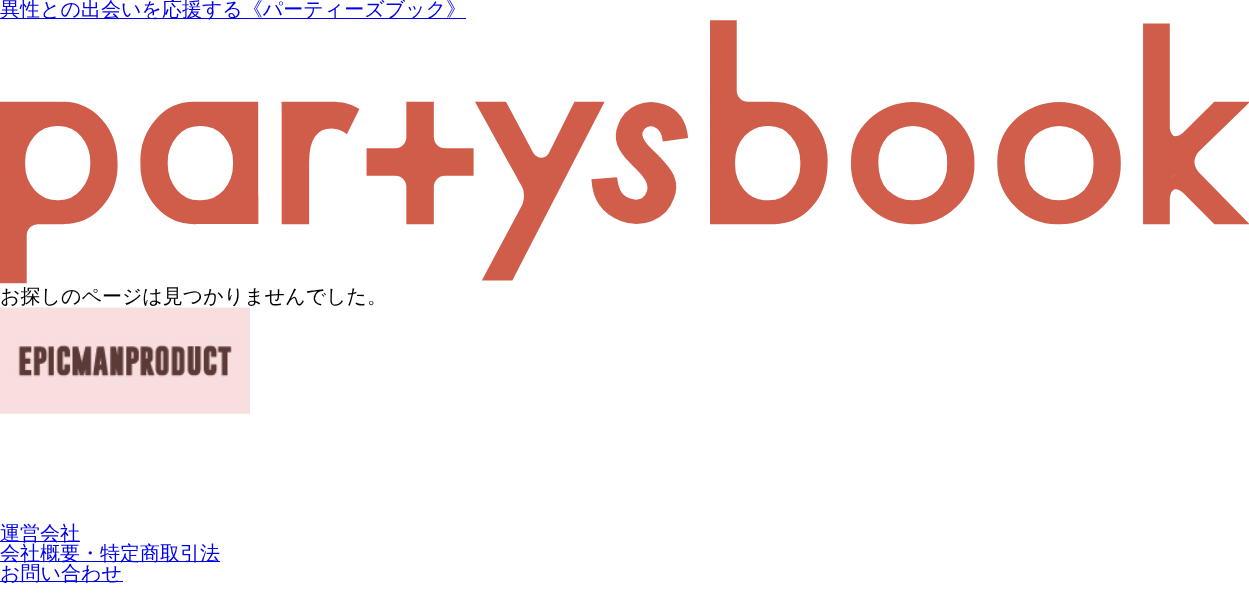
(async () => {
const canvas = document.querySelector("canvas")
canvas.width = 1249
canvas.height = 597
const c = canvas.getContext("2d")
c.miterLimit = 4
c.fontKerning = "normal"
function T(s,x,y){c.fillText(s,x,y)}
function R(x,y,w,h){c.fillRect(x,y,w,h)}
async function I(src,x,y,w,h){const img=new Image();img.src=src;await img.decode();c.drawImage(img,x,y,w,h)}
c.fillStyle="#fff"
R(0,0,1249,597)
c.fillStyle="#00e"
R(0,18,466,1)
c.font="500 20px WenQuanYi Zen Hei"
T("異性との出会いを応援する《パーティーズブック》",0,16)
await I("1.png",0,20,1249,264)
c.fillStyle="#000"
T("お探しのページは見つかりませんでした。",0,303)
await I("2.png",0,307,250,107)
c.fillStyle="#00e"
R(0,541,80,1)
T("運営会社",0,540)
R(0,561,220,1)
T("会社概要・特定商取引法",0,560)
R(0,581,123,1)
T("お問い合わせ",0,580)
})()
